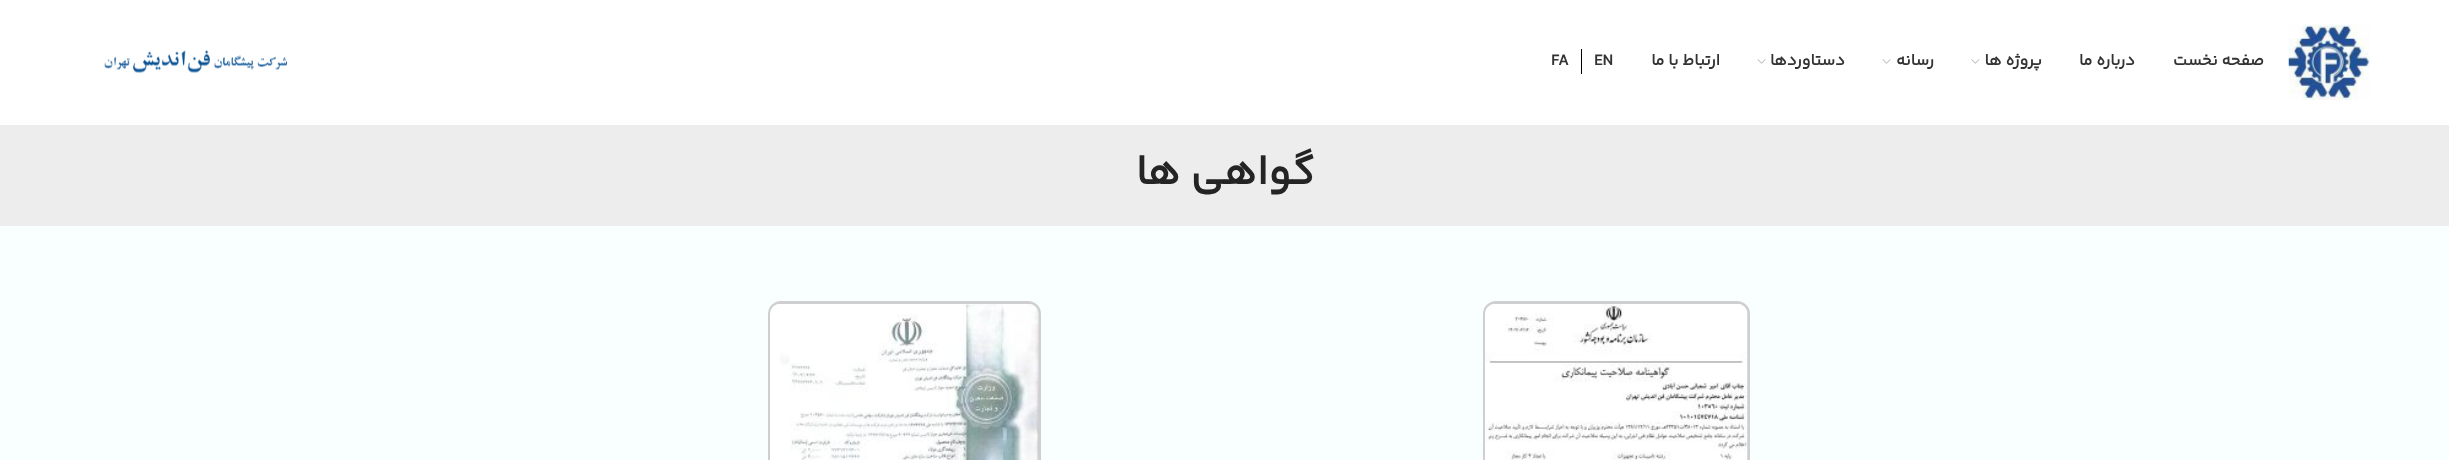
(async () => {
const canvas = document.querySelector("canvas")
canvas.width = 2449
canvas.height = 460
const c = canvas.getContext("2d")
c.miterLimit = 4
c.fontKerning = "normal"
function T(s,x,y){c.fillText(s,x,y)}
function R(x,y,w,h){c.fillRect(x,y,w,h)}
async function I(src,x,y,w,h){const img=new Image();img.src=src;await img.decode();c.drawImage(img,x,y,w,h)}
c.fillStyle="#fff"
R(0,0,2449,460)
await I("1.png",2288,24,82,77)
c.direction="rtl"
c.font="bold 16.25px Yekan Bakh"
c.fillStyle="#333"
T("صفحه نخست",2264,65)
T("درباره ما",2135,65)
T("پروژه ها",2042,65)
await I("2.png",1971,59,9,5)
T("رسانه",1934,65)
await I("3.png",1882,59,9,5)
T("دستاوردها",1845,65)
await I("3.png",1757,59,9,5)
T("ارتباط با ما",1720,65)
c.direction="ltr"
T("EN",1594,65)
T("FA",1551,65)
c.fillStyle="#000"
R(1581,49,1,25)
await I("4.png",104,50,183,23)
c.fillStyle="#f9ffff"
R(0,226,2449,234)
c.fillStyle="#ededed"
R(0,125,2449,101)
c.direction="rtl"
c.font="bold 42.5px Yekan Bakh"
c.fillStyle="#242424"
T("گواهی ها",1315,184)
c.beginPath()
c.roundRect(1484.5,302.5,264,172,11.5)
c.strokeStyle="#cfcfcf"
c.lineWidth=3
c.stroke()
await I("5.png",1485,304,263,156)
c.beginPath()
c.roundRect(769.5,302.5,270,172,11.5)
c.stroke()
await I("6.png",770,304,269,156)
})()
